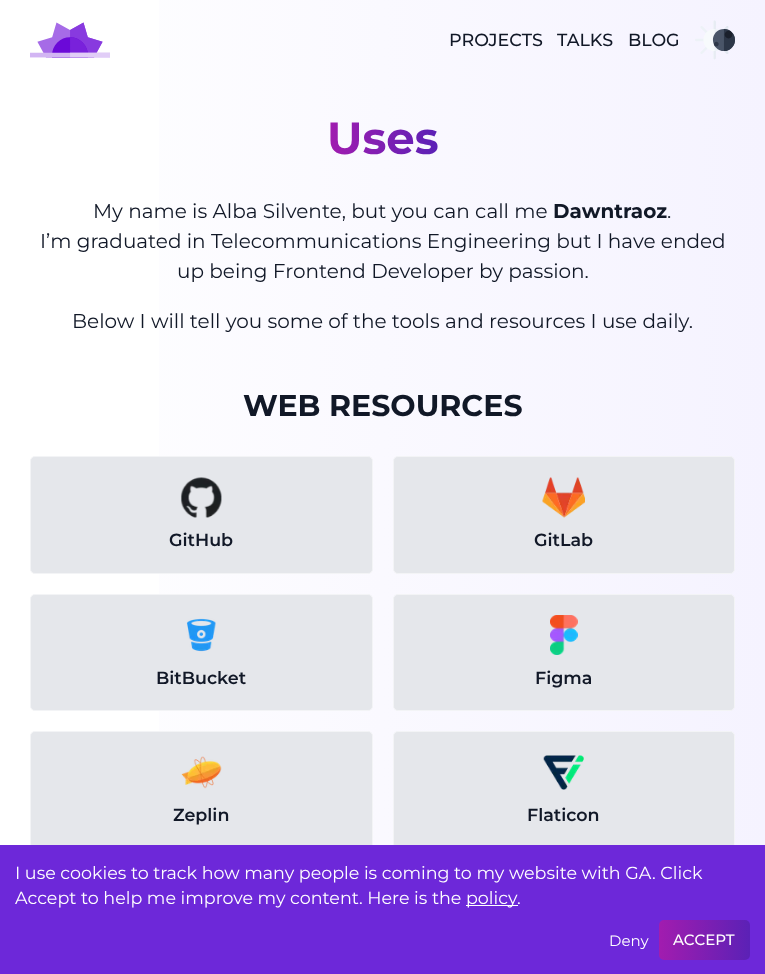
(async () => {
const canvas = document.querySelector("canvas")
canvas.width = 765
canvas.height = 974
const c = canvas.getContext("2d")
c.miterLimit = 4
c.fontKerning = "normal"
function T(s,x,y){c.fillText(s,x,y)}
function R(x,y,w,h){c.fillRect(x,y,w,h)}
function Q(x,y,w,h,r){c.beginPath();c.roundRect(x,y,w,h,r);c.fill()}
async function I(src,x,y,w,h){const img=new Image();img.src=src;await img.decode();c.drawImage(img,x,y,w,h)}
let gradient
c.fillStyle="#fff"
R(0,0,765,974)
gradient = c.createLinearGradient(0,40,765,40)
gradient.addColorStop(0,"#fff")
gradient.addColorStop(1,"#f5f3ff")
c.fillStyle = gradient
R(159,0,606,80)
await I("1.png",30,22,80,36)
c.font="500 17.5px Montserrat"
c.fillStyle="#111827"
T("PROJECTS",449,46)
T("TALKS",557,46)
T("BLOG",628,46)
await I("2.png",695,20,40,40)
gradient = c.createLinearGradient(0,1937,765,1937)
gradient.addColorStop(0,"#fff")
gradient.addColorStop(1,"#f5f3ff")
c.fillStyle = gradient
R(159,80,606,765)
c.font="bold 45px Montserrat"
gradient = c.createLinearGradient(327,138,438,138)
gradient.addColorStop(0,"#a21caf")
gradient.addColorStop(1,"#5b21b6")
c.fillStyle = gradient
T("Uses",327,154)
c.font="20px Montserrat"
c.fillStyle="#111827"
T("My name is Alba Silvente, but you can call me",93,218)
c.font="bold 20px Montserrat"
T("Dawntraoz",553,218)
c.font="20px Montserrat"
T(".",667,218)
T("I’m graduated in Telecommunications Engineering but I have ended",40,248)
T("up being Frontend Developer by passion.",177,278)
T("Below I will tell you some of the tools and resources I use daily.",72,328)
c.font="bold 30px Montserrat"
T("WEB RESOURCES",243,416)
c.fillStyle="#e5e7eb"
c.beginPath()
c.roundRect(30.5,456.5,342,117,4.5)
c.fill()
c.strokeStyle="#f3f4f6"
c.stroke()
await I("3.png",180,477,42,41)
c.font="600 17.5px Montserrat"
c.fillStyle="#111827"
T("GitHub",169,546)
c.fillStyle="#e5e7eb"
c.beginPath()
c.roundRect(393.5,456.5,341,117,4.5)
c.fill()
c.stroke()
await I("4.png",542,477,43,41)
c.fillStyle="#111827"
T("GitLab",534,546)
c.fillStyle="#e5e7eb"
c.beginPath()
c.roundRect(30.5,594.5,342,116,4.5)
c.fill()
c.stroke()
await I("5.png",186,618,30,34)
c.fillStyle="#111827"
T("BitBucket",156,684)
c.fillStyle="#e5e7eb"
c.beginPath()
c.roundRect(393.5,594.5,341,116,4.5)
c.fill()
c.stroke()
await I("6.png",550,615,28,40)
c.fillStyle="#111827"
T("Figma",535,684)
c.fillStyle="#e5e7eb"
c.beginPath()
c.roundRect(30.5,731.5,342,117,4.5)
c.fill()
c.stroke()
await I("7.png",181,756,41,33)
c.fillStyle="#111827"
T("Zeplin",173,821)
c.fillStyle="#e5e7eb"
c.beginPath()
c.roundRect(393.5,731.5,341,117,4.5)
c.fill()
c.stroke()
await I("8.png",543,755,41,35)
c.fillStyle="#111827"
T("Flaticon",527,821)
c.fillStyle="#6d28d9"
R(0,845,765,129)
c.font="17.5px Montserrat"
c.fillStyle="#fff"
T("I use cookies to track how many people is coming to my website with GA. Click",15,879)
T("Accept to help me improve my content. Here is the",15,904)
R(466,905,52,1)
T("policy",466,904)
T(".",517,904)
c.font="15px Montserrat"
T("Deny",609,946)
gradient = c.createLinearGradient(659,940,750,940)
gradient.addColorStop(0,"#a21caf")
gradient.addColorStop(1,"#5b21b6")
c.fillStyle = gradient
Q(659,920,91,40,5)
c.font="500 15px Montserrat"
c.fillStyle="#fff"
T("ACCEPT",673,945)
})()
